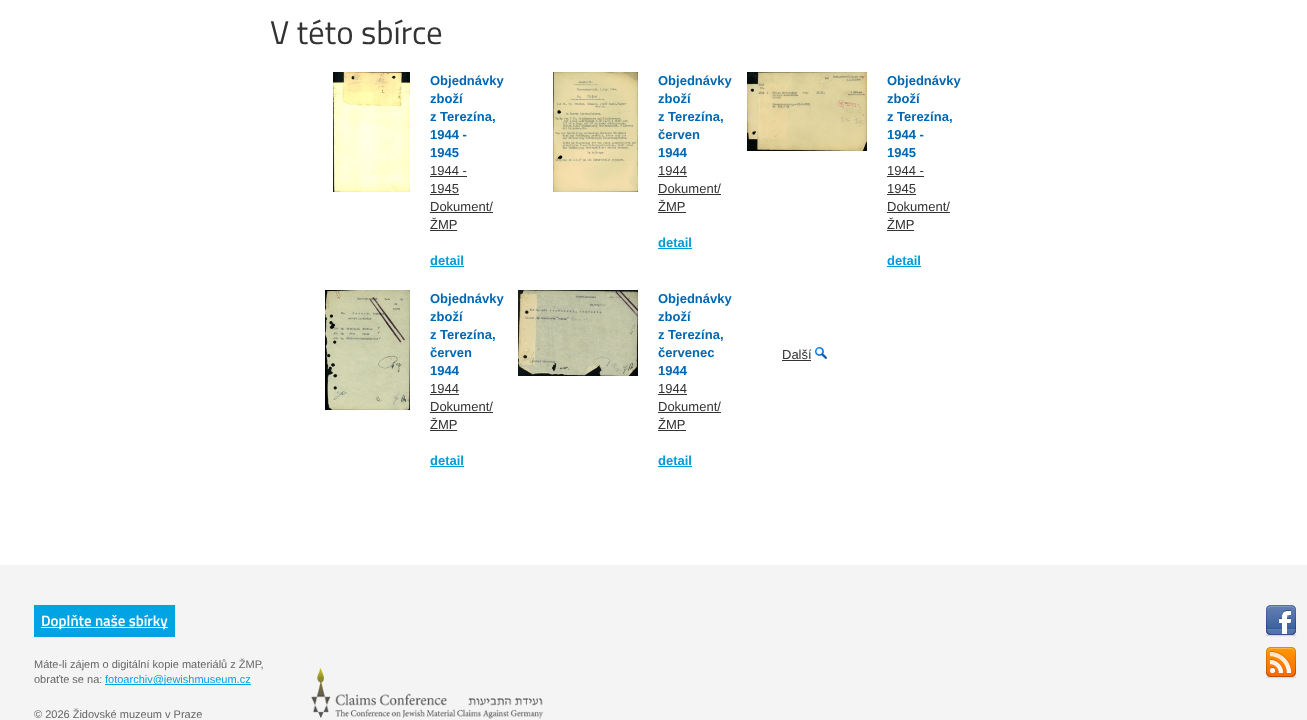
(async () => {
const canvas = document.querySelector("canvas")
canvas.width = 1307
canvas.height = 720
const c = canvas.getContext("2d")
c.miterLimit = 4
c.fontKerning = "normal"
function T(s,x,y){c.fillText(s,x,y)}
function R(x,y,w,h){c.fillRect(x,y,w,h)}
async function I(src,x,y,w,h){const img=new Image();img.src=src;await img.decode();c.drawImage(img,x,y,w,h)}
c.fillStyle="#fff"
R(0,0,1307,720)
c.font="33px Titillium Web"
c.fillStyle="#333"
T("V této sbírce",270,44)
await I("1.png",333,72,77,120)
c.font="bold 13px Liberation Sans"
c.fillStyle="#0068b3"
T("Objednávky",430,85)
T("zboží",430,103)
T("z Terezína,",430,121)
T("1944 -",430,139)
T("1945",430,157)
c.font="13px Liberation Sans"
c.fillStyle="#333"
T("1944 -",430,175)
R(430,176,37,1)
T("1945",430,193)
R(430,194,29,1)
T("Dokument/",430,211)
R(430,212,63,1)
T("ŽMP",430,229)
R(430,230,27,1)
c.font="bold 13px Liberation Sans"
c.fillStyle="#009bd9"
T("detail",430,265)
R(430,266,34,1)
await I("2.png",553,72,85,120)
c.fillStyle="#0068b3"
T("Objednávky",658,85)
T("zboží",658,103)
T("z Terezína,",658,121)
T("červen",658,139)
T("1944",658,157)
c.font="13px Liberation Sans"
c.fillStyle="#333"
T("1944",658,175)
R(658,176,29,1)
T("Dokument/",658,193)
R(658,194,63,1)
T("ŽMP",658,211)
R(658,212,28,1)
c.font="bold 13px Liberation Sans"
c.fillStyle="#009bd9"
T("detail",658,247)
R(658,248,34,1)
await I("3.png",747,72,120,79)
c.fillStyle="#0068b3"
T("Objednávky",887,85)
T("zboží",887,103)
T("z Terezína,",887,121)
T("1944 -",887,139)
T("1945",887,157)
c.font="13px Liberation Sans"
c.fillStyle="#333"
T("1944 -",887,175)
R(887,176,37,1)
T("1945",887,193)
R(887,194,29,1)
T("Dokument/",887,211)
R(887,212,63,1)
T("ŽMP",887,229)
R(887,230,27,1)
c.font="bold 13px Liberation Sans"
c.fillStyle="#009bd9"
T("detail",887,265)
R(887,266,34,1)
await I("4.png",325,290,85,120)
c.fillStyle="#0068b3"
T("Objednávky",430,303)
T("zboží",430,321)
T("z Terezína,",430,339)
T("červen",430,357)
T("1944",430,375)
c.font="13px Liberation Sans"
c.fillStyle="#333"
T("1944",430,393)
R(430,394,29,1)
T("Dokument/",430,411)
R(430,412,63,1)
T("ŽMP",430,429)
R(430,430,27,1)
c.font="bold 13px Liberation Sans"
c.fillStyle="#009bd9"
T("detail",430,465)
R(430,466,34,1)
await I("5.png",518,290,120,86)
c.fillStyle="#0068b3"
T("Objednávky",658,303)
T("zboží",658,321)
T("z Terezína,",658,339)
T("červenec",658,357)
T("1944",658,375)
c.font="13px Liberation Sans"
c.fillStyle="#333"
T("1944",658,393)
R(658,394,29,1)
T("Dokument/",658,411)
R(658,412,63,1)
T("ŽMP",658,429)
R(658,430,28,1)
c.font="bold 13px Liberation Sans"
c.fillStyle="#009bd9"
T("detail",658,465)
R(658,466,34,1)
c.font="13px Liberation Sans"
c.fillStyle="#333"
T("Další",782,359)
R(782,360,29,1)
await I("6.png",815,347,12,12)
c.fillStyle="#f4f4f4"
R(0,565,1307,155)
c.fillStyle="#00a4e4"
R(34,605,141,32)
c.fillStyle="#fff"
R(41,627,127,1)
c.font="600 15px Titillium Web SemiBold"
T("Doplňte naše sbírky",41,626)
c.font="11px Liberation Sans"
c.fillStyle="#666"
T("Máte-li zájem o digitální kopie materiálů z ŽMP,",34,668)
T("obraťte se na:",34,683)
c.fillStyle="#00a4e4"
R(105,684,146,1)
T("fotoarchiv@jewishmuseum.cz",105,683)
c.fillStyle="#666"
T("© 2026 Židovské muzeum v Praze",34,718)
await I("7.png",311,668,232,51)
await I("8.png",1265,605,32,32)
await I("9.png",1266,647,30,32)
})()
